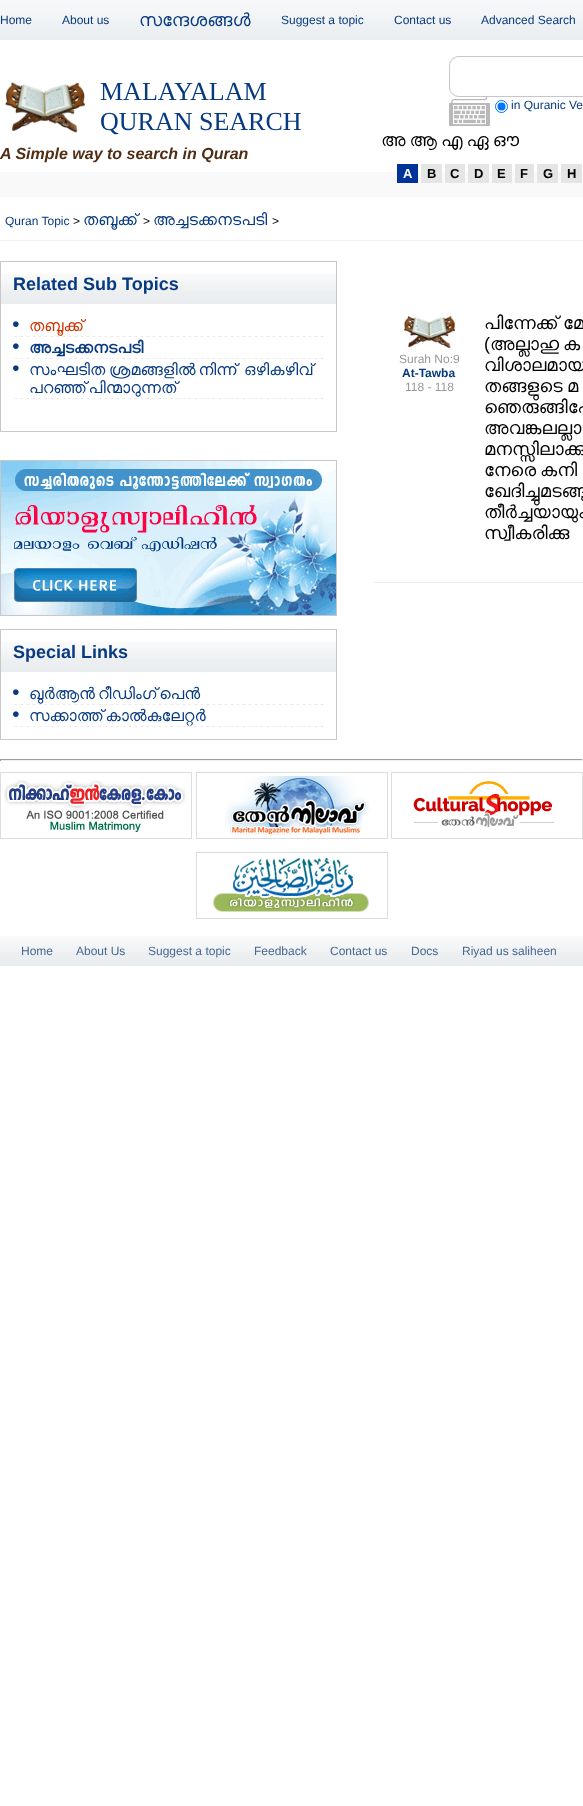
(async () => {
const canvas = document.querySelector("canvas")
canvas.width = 583
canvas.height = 1806
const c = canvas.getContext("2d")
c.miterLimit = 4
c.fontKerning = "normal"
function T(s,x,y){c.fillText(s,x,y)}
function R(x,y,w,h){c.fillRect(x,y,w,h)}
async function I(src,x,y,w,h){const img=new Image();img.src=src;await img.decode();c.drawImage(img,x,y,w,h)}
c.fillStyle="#fff"
R(0,0,583,1806)
await I("1.png",0,0,583,40)
c.font="12px Liberation Sans"
c.fillStyle="#073a80"
T("Home",0,24)
T("About us",62,24)
c.font="18px FreeSans"
T("സന്ദേശങ്ങള്‍",139,26)
c.font="12px Liberation Sans"
T("Suggest a topic",281,24)
T("Contact us",394,24)
T("Advanced Search",481,24)
c.fillStyle="#f9f9fa"
R(0,172,583,25)
await I("2.png",5,82,80,51)
c.font="26px Liberation Serif"
c.fillStyle="#073a80"
T("MALAYALAM",100,100)
T("QURAN SEARCH",100,130)
c.font="italic bold 16px Liberation Sans"
c.fillStyle="#512d14"
T("A Simple way to search in Quran",0,159)
await I("3.png",449,55,134,42)
await I("4.png",449,97,41,29)
c.beginPath()
c.arc(501.5,106.5,6,0,7)
c.strokeStyle="#0075ff"
c.stroke()
c.fillStyle="#0075ff"
c.beginPath()
c.arc(501.5,106.5,4,0,7)
c.fill()
c.font="12px Liberation Sans"
c.fillStyle="#073a80"
T("in Quranic Ve",511,109)
c.wordSpacing="-0.5px"
c.font="18px FreeSans"
c.fillStyle="#000"
T("അ ആ എ ഏ ഔ",381,146)
c.fillStyle="#039"
R(397,164,21,19)
c.wordSpacing="0px"
c.font="bold 13px Liberation Sans"
c.fillStyle="#fff"
T("A",403,178)
c.fillStyle="#e5e5e5"
R(421,164,21,19)
c.fillStyle="#000"
T("B",427,178)
c.fillStyle="#e5e5e5"
R(445,164,20,19)
c.fillStyle="#000"
T("C",450,178)
c.fillStyle="#e5e5e5"
R(468,164,21,19)
c.fillStyle="#000"
T("D",474,178)
c.fillStyle="#e5e5e5"
R(492,164,20,19)
c.fillStyle="#000"
T("E",497,178)
c.fillStyle="#e5e5e5"
R(515,164,19,19)
c.fillStyle="#000"
T("F",520,178)
c.fillStyle="#e5e5e5"
R(537,164,21,19)
c.fillStyle="#000"
T("G",543,178)
c.fillStyle="#e5e5e5"
R(561,164,21,19)
c.fillStyle="#000"
T("H",567,178)
c.fillStyle="#efefef"
R(0,240,583,1)
c.font="12px Liberation Sans"
c.fillStyle="#073a80"
T("Quran Topic",5,225)
c.fillStyle="#000"
T(">",73,225)
c.font="16px FreeSans"
c.fillStyle="#073a80"
T("തബൂക്ക്",83,225)
c.font="12px Liberation Sans"
c.fillStyle="#000"
T(">",143,225)
c.font="16px FreeSans"
c.fillStyle="#073a80"
T("അച്ചടക്കനടപടി",153,225)
c.font="12px Liberation Sans"
c.fillStyle="#000"
T(">",272,225)
await I("5.png",1,274,335,30)
c.strokeStyle="#c8c8c8"
c.strokeRect(.5,261.5,336,170)
c.font="bold 18px Liberation Sans"
c.fillStyle="#073a80"
T("Related Sub Topics",13,290)
await I("6.png",14,336,309,1)
await I("7.png",13,321,6,6)
c.font="16px FreeSans"
c.fillStyle="#c30"
T("തബൂക്ക്",29,331)
await I("6.png",14,358,309,1)
await I("7.png",13,343,6,6)
c.font="bold 16px FreeSans"
c.fillStyle="#073a80"
T("അച്ചടക്കനടപടി",29,353)
await I("6.png",14,398,309,1)
await I("7.png",13,365,6,6)
c.font="16px FreeSans"
T("സംഘടിത",29,375)
c.wordSpacing="-1px"
T("ശ്രമങ്ങളില്‍ നിന്ന്",109,375)
c.wordSpacing="0px"
T("ഒഴികഴിവ്",244,375)
c.wordSpacing="-1px"
T("പറഞ്ഞ് പിന്മാറുന്നത്",29,393)
c.strokeRect(.5,460.5,336,155)
await I("8.png",1,461,335,154)
await I("5.png",1,642,335,30)
c.strokeRect(.5,629.5,336,110)
c.wordSpacing="0px"
c.font="bold 18px Liberation Sans"
T("Special Links",13,658)
await I("6.png",14,704,309,1)
await I("7.png",13,689,6,6)
c.wordSpacing="-1px"
c.font="16px FreeSans"
T("ഖുർആൻ റീഡിംഗ് പെൻ",29,699)
await I("6.png",14,726,309,1)
await I("7.png",13,711,6,6)
T("സക്കാത്ത് കാൽകുലേറ്റർ",29,721)
c.fillStyle="#ebebeb"
R(374,582,209,1)
await I("9.png",400,313,56,39)
c.wordSpacing="0px"
c.font="12px Liberation Sans"
c.fillStyle="#999"
T("Surah No:9",399,363)
c.font="bold 12px Liberation Sans"
c.fillStyle="#073a80"
T("At-Tawba",402,377)
c.font="12px Liberation Sans"
c.fillStyle="#999"
T("118 - 118",405,391)
c.font="18px FreeSans"
c.fillStyle="#000"
T("പിന്നേക്ക്",484,329)
c.wordSpacing="-0.5px"
T("മേ",563,329)
c.wordSpacing="0px"
c.font="18px Liberation Sans"
T("(",484,350)
c.wordSpacing="-0.5px"
c.font="18px FreeSans"
T("അല്ലാഹു ക",490,350)
T("വിശാലമായ",484,371)
c.wordSpacing="0px"
T("തങ്ങളുടെ",484,392)
c.wordSpacing="-1px"
T("മ",567,392)
c.wordSpacing="0px"
T("ഞെരുങ്ങിപ്പോ",484,413)
c.wordSpacing="-0.5px"
T("അവങ്കലല്ലാ",484,434)
c.wordSpacing="0px"
T("മനസ്സിലാക്കു",484,455)
c.wordSpacing="-0.5px"
T("നേരെ കനി",484,476)
c.wordSpacing="-1px"
T("ഖേദിച്ചുമടങ്ങു",484,497)
c.wordSpacing="-0.5px"
T("തീര്‍ച്ചയായും",484,518)
T("സ്വീകരിക്കു",484,539)
c.fillStyle="#9f9f9f"
R(0,759,583,1)
c.fillStyle="#eee"
R(582,759,1,2)
R(0,760,583,1)
c.fillStyle="#9f9f9f"
R(0,759,1,2)
c.strokeStyle="#ddd"
c.strokeRect(.5,772.5,191,66)
await I("10.png",4,780,182,52)
c.strokeRect(196.5,772.5,191,66)
await I("11.png",225,776,145,61)
c.strokeRect(391.5,772.5,191,66)
await I("12.png",413,781,141,47)
c.strokeRect(196.5,852.5,191,66)
await I("13.png",213,856,156,56)
await I("14.png",0,936,583,30)
c.wordSpacing="0px"
c.font="12px Liberation Sans"
c.fillStyle="#456893"
T("Home",21,955)
T("About Us",76,955)
T("Suggest a topic",148,955)
T("Feedback",254,955)
T("Contact us",330,955)
T("Docs",411,955)
T("Riyad us saliheen",462,955)
})()
